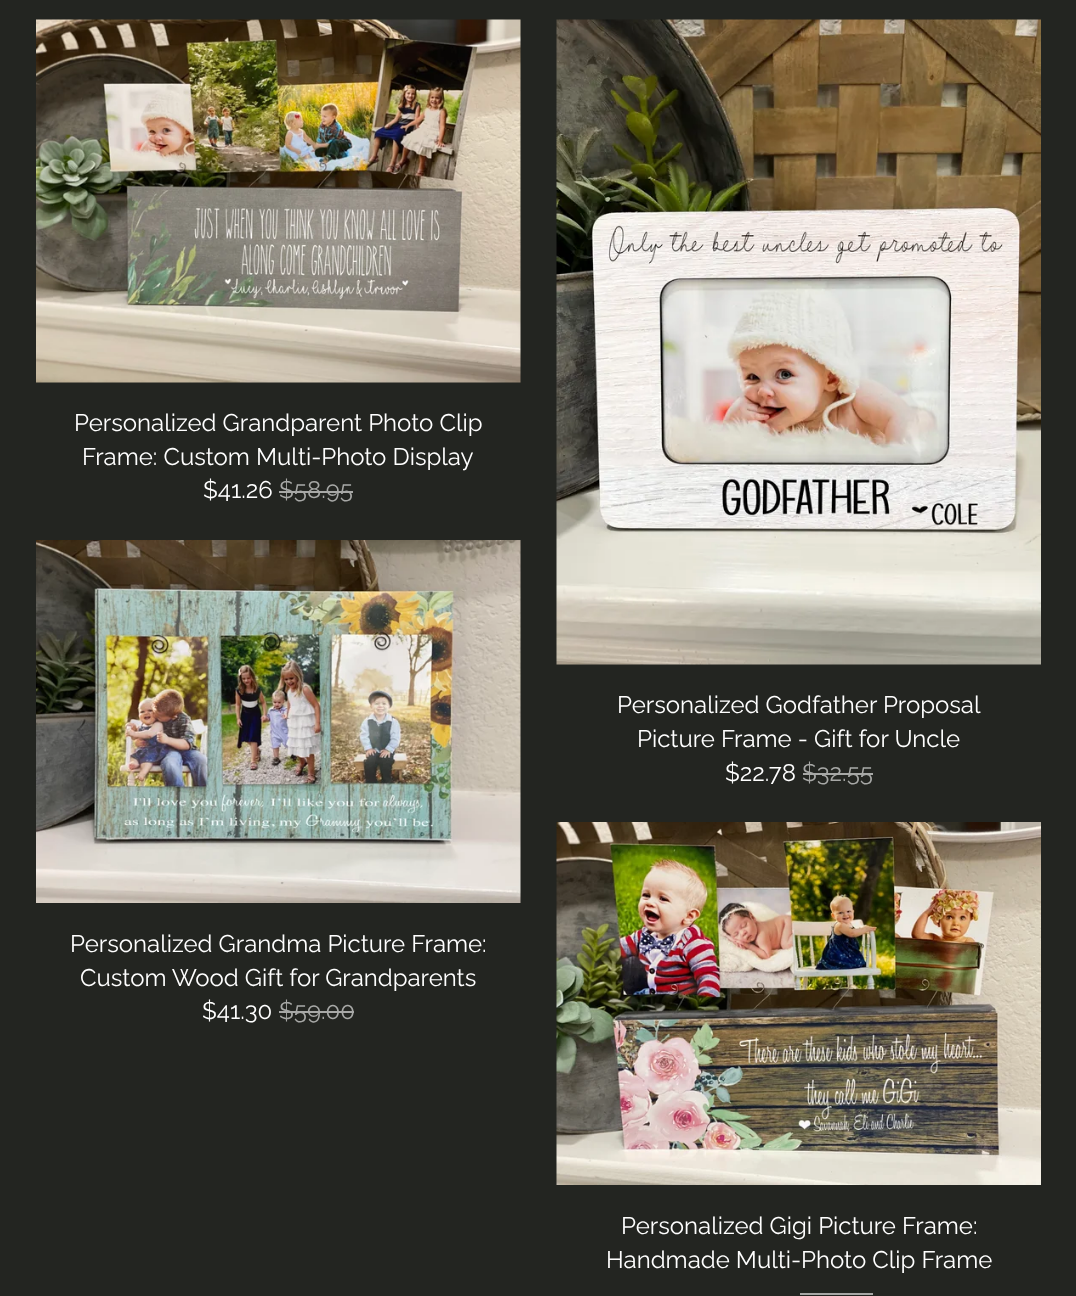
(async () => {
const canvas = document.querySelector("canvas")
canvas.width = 1076
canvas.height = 1296
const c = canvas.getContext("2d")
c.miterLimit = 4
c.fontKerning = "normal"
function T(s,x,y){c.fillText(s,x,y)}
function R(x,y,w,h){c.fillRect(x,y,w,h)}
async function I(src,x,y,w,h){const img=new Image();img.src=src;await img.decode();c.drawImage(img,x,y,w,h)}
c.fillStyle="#232521"
R(0,0,1076,1296)
await I("1.png",36,19,485,364)
c.font="24px Raleway"
c.fillStyle="#fff"
T("Personalized Grandparent Photo Clip",74,431)
T("Frame: Custom Multi-Photo Display",82,465)
T("$41.26",203,498)
c.fillStyle="#a7a8a6"
T("$58.95",279,498)
R(279,491,74,2)
await I("2.png",36,540,485,363)
c.fillStyle="#fff"
T("Personalized Grandma Picture Frame:",70,952)
T("Custom Wood Gift for Grandparents",80,986)
T("$41.30",202,1019)
c.fillStyle="#a7a8a6"
T("$59.00",279,1019)
R(279,1011,75,2)
await I("3.png",556,19,485,646)
c.fillStyle="#fff"
T("Personalized Godfather Proposal",617,713)
T("Picture Frame - Gift for Uncle",637,747)
T("$22.78",725,781)
c.fillStyle="#a7a8a6"
T("$32.55",802,781)
R(803,773,70,2)
await I("4.png",556,822,485,363)
c.fillStyle="#fff"
T("Personalized Gigi Picture Frame:",621,1234)
T("Handmade Multi-Photo Clip Frame",606,1268)
c.fillStyle="#a7a8a6"
R(800,1293,73,2)
})()
